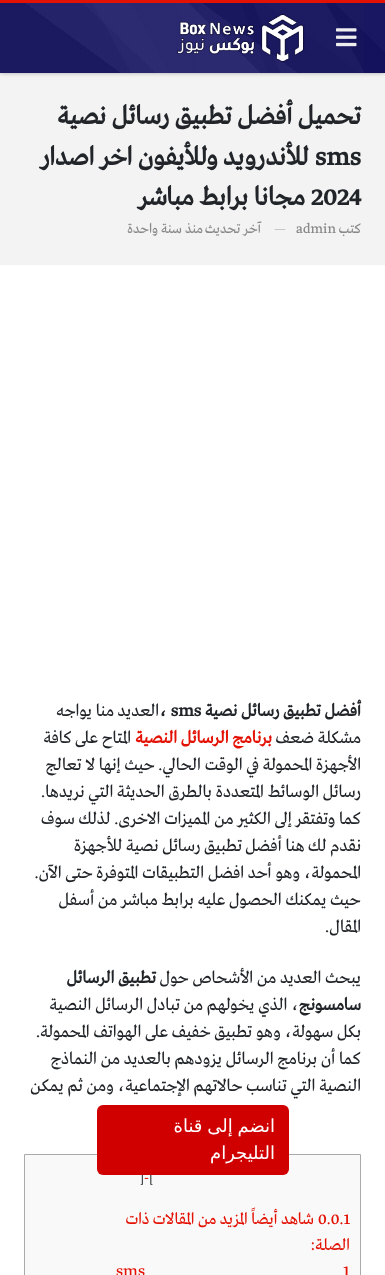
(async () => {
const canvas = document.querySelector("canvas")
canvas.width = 385
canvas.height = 1275
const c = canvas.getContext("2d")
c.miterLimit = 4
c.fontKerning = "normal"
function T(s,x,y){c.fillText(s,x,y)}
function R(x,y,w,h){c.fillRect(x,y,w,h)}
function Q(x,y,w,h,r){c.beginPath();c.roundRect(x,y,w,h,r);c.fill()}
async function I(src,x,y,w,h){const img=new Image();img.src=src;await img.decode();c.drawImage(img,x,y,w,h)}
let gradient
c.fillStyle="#f3f3f3"
R(0,0,385,1275)
c.fillStyle="#0000004d"
c.filter="blur(2px)"
c.beginPath()
c.rect(0,0,385,73)
c.fill()
c.filter="none"
c.fillStyle="#e31205"
R(0,0,385,3)
gradient = c.createLinearGradient(372,-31,13,107)
gradient.addColorStop(0,"#100e61")
gradient.addColorStop(.32,"#100e61")
gradient.addColorStop(.32,"#0b095c")
gradient.addColorStop(.35,"#0b095c")
gradient.addColorStop(.35,"#0e0c5f")
gradient.addColorStop(.51,"#0e0c5f")
gradient.addColorStop(.51,"#0d0b5e")
gradient.addColorStop(1,"#0d0b5e")
c.fillStyle = gradient
R(0,3,385,70)
gradient = c.createLinearGradient(355,-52,30,128)
gradient.addColorStop(0,"#3737370d")
gradient.addColorStop(.14,"#3737370d")
gradient.addColorStop(.14,"#d1d1d10d")
gradient.addColorStop(.6,"#d1d1d10d")
gradient.addColorStop(.6,"#f5f5f50d")
gradient.addColorStop(.69,"#f5f5f50d")
gradient.addColorStop(.69,"#a4a4a40d")
gradient.addColorStop(1,"#a4a4a40d")
c.fillStyle = gradient
R(0,3,364,70)
gradient = c.createLinearGradient(82,152,303,-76)
gradient.addColorStop(0,"#8080800d")
gradient.addColorStop(.34,"#8080800d")
gradient.addColorStop(.34,"#d4d4d40d")
gradient.addColorStop(.57,"#d4d4d40d")
gradient.addColorStop(.57,"#1919190d")
gradient.addColorStop(.89,"#1919190d")
gradient.addColorStop(.89,"#8787870d")
gradient.addColorStop(1,"#8787870d")
c.fillStyle = gradient
R(0,3,385,70)
gradient = c.createLinearGradient(276,-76,109,152)
gradient.addColorStop(0,"#4d4d4d0d")
gradient.addColorStop(.25,"#4d4d4d0d")
gradient.addColorStop(.25,"#2a2a2a0d")
gradient.addColorStop(.38,"#2a2a2a0d")
gradient.addColorStop(.38,"#dfdfdf0d")
gradient.addColorStop(.75,"#dfdfdf0d")
gradient.addColorStop(.75,"#2424240d")
gradient.addColorStop(1,"#2424240d")
c.fillStyle = gradient
R(0,3,385,70)
await I("1.png",336,28,21,19)
await I("2.png",177,13,128,50)
c.direction="rtl"
c.font="bold 27.1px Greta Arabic"
c.fillStyle="#212529"
T("تحميل أفضل تطبيق رسائل نصية",361,124)
c.direction="ltr"
T("sms",315,165)
c.direction="rtl"
T("للأندرويد وللأيفون اخر اصدار",309,165)
c.direction="ltr"
T("2024",311,205)
c.direction="rtl"
T("مجانا برابط مباشر",305,205)
c.font="14.5px Greta Arabic"
c.fillStyle="#888"
T("كتب",361,233)
c.direction="ltr"
T("admin",296,233)
c.fillStyle="#bebebe"
T("—",274,233)
c.direction="rtl"
c.fillStyle="#888"
T("آخر تحديث",261,233)
T("منذ سنة واحدة",203,233)
c.fillStyle="#fff"
R(0,265,385,1010)
c.font="bold 18px Greta Arabic"
c.fillStyle="#212529"
T("أفضل تطبيق رسائل نصية",361,716)
c.direction="ltr"
T("، sms",159,716)
c.direction="rtl"
c.font="18px Greta Arabic"
T("العديد منا يواجه",159,716)
T("مشكلة ضعف",361,743)
c.font="bold 18px Greta Arabic"
c.fillStyle="#e31205"
T("برنامج الرسائل",272,743)
T("النصية",177,743)
c.font="18px Greta Arabic"
c.fillStyle="#212529"
T("المتاح على كافة",131,743)
T("الأجهزة المحمولة في الوقت الحالي. حيث إنها لا تعالج",361,770)
T("رسائل الوسائط المتعددة بالطرق الحديثة التي نريدها.",361,797)
T("كما وتفتقر إلى الكثير من المميزات الاخرى. لذلك سوف",361,824)
T("نقدم لك هنا أفضل",361,851)
T("تطبيق رسائل نصية للأجهزة",242,851)
T("المحمولة، وهو أ",361,878)
T("حد افضل التطبيقات المتوفرة حتى الآن.",268,878)
T("حيث يمكنك الحصول عليه برابط مباشر من أسفل",361,905)
T("المقال.",361,932)
T("يبحث العديد من الأشحاص حول",361,983)
c.font="bold 18px Greta Arabic"
T("تطبيق الرسائل",156,983)
T("سامسونج",361,1010)
c.font="18px Greta Arabic"
T("، الذي يخولهم من تبادل الرسائل النصية",299,1010)
T("بكل سهولة، وهو تطبيق خفيف على الهواتف المحمولة.",361,1037)
T("كما أن",361,1064)
T("برنامج الرسائل يزودهم بالعديد من النماذج",317,1064)
T("النصية التي تناسب حالاتهم الإجتماعية، ومن ثم يمكن",361,1091)
c.fillStyle="#f9f9f9"
c.beginPath()
c.rect(24.5,1154.5,336,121)
c.fill()
c.strokeStyle="#aaa"
c.stroke()
c.direction="ltr"
c.font="15px Greta Arabic"
c.fillStyle="#212529"
T("[",149,1182)
c.fillStyle="#e31205"
T("-",144,1182)
c.fillStyle="#212529"
T("]",140,1182)
c.font="17.1px Greta Arabic"
c.fillStyle="#e31205"
T("0.0.1",318,1224)
c.direction="rtl"
T("شاهد أيضاً المزيد من المقالات ذات",314,1224)
T("الصلة:",350,1250)
c.direction="ltr"
T("1",343,1276)
T("sms",116,1276)
c.fillStyle="#d00000"
Q(97,1105,192,70,6)
c.wordSpacing="-1px"
c.direction="rtl"
c.font="18px DejaVu Sans"
c.fillStyle="#fff"
T("انضم إلى قناة",275,1132)
c.wordSpacing="0px"
T("التليجرام",275,1159)
})()
